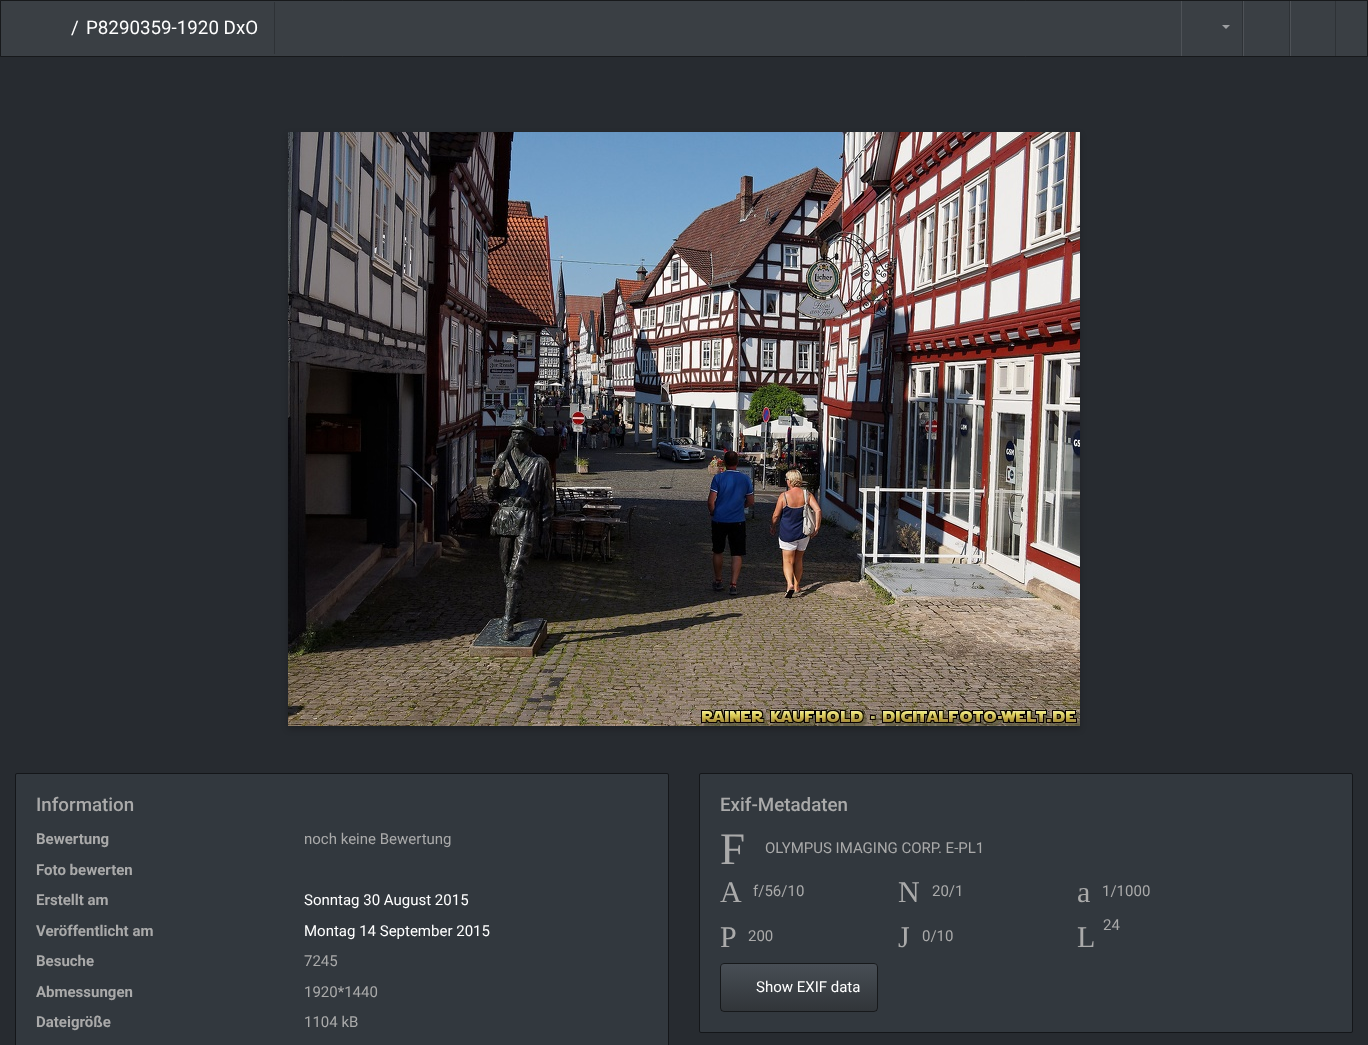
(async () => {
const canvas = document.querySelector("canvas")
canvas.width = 1368
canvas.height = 1045
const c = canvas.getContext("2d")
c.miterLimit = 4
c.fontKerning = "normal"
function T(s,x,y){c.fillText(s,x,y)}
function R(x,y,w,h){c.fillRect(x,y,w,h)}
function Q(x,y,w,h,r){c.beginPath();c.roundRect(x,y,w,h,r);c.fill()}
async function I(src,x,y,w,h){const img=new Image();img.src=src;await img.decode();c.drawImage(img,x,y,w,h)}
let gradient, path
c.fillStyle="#272b30"
R(0,0,1368,1045)
c.fillStyle="#3a3f44"
c.beginPath()
c.rect(.5,.5,1367,56)
c.fill()
c.strokeStyle="#17191b"
c.stroke()
c.fillStyle="#2e3236"
R(274,2,1,52)
c.font="18.75px Roboto"
c.fillStyle="#fff"
T("/",71,34)
T("P8290359-1920 DxO",86,34)
c.fillStyle="#2e3236"
R(1242,1,1,55)
c.fillStyle="#4e5257"
R(1181,1,1,55)
c.fillStyle="#9d9fa2"
path = new Path2D("M1222 25h8l-4 4z")
c.fill(path)
c.fillStyle="#2e3236"
R(1289,1,1,55)
c.fillStyle="#4e5257"
R(1243,1,1,55)
c.fillStyle="#2e3236"
R(1335,1,1,55)
c.fillStyle="#4e5257"
R(1290,1,1,55)
c.fillStyle="#0000003b"
c.filter="blur(3px)"
c.beginPath()
c.rect(288,135,792,594)
c.fill()
c.filter="none"
await I("1.png",288,132,792,594)
c.fillStyle="#32383e"
c.beginPath()
c.roundRect(15.5,773.5,653,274,1.5)
c.fill()
c.strokeStyle="#141619"
c.stroke()
c.font="500 18.75px Roboto"
c.fillStyle="#aaa"
T("Information",36,811)
c.font="bold 15px Roboto"
T("Bewertung",36,844)
c.font="15px Roboto"
T("noch keine Bewertung",304,844)
c.font="bold 15px Roboto"
T("Foto bewerten",36,875)
T("Erstellt am",36,905)
c.font="15px Roboto"
c.fillStyle="#fff"
T("Sonntag 30 August 2015",304,905)
c.font="bold 15px Roboto"
c.fillStyle="#aaa"
T("Veröffentlicht am",36,936)
c.font="15px Roboto"
c.fillStyle="#fff"
T("Montag 14 September 2015",304,936)
c.font="bold 15px Roboto"
c.fillStyle="#aaa"
T("Besuche",36,966)
c.font="15px Roboto"
T("7245",304,966)
c.font="bold 15px Roboto"
T("Abmessungen",36,997)
c.font="15px Roboto"
T("1920*1440",304,997)
c.font="bold 15px Roboto"
T("Dateigröße",36,1027)
c.font="15px Roboto"
T("1104 kB",304,1027)
c.fillStyle="#32383e"
c.beginPath()
c.roundRect(699.5,773.5,653,259,1.5)
c.fill()
c.stroke()
c.font="500 18.75px Roboto"
c.fillStyle="#aaa"
T("Exif-Metadaten",720,811)
c.font="45px Liberation Serif"
T("F",720,864)
c.font="15px Roboto"
T("OLYMPUS IMAGING CORP. E-PL1",765,853)
c.font="30px Liberation Serif"
T("A",720,902)
c.font="15px Roboto"
T("f/56/10",753,896)
c.font="30px Liberation Serif"
T("N",898,902)
c.font="15px Roboto"
T("20/1",932,896)
c.font="30px Liberation Serif"
T("a",1077,902)
c.font="15px Roboto"
T("1/1000",1102,896)
c.font="30px Liberation Serif"
T("P",720,947)
c.font="15px Roboto"
T("200",748,941)
c.font="30px Liberation Serif"
T("J",898,947)
c.font="15px Roboto"
T("0/10",922,941)
T("24",1103,930)
c.font="30px Liberation Serif"
T("L",1077,947)
c.fillStyle="#3a3f44"
Q(720,963,158,49,4)
c.save()
c.beginPath()
c.roundRect(720,963,158,49,4)
c.clip()
gradient = c.createLinearGradient(799,964,799,1011)
gradient.addColorStop(0,"#484e55")
gradient.addColorStop(.6,"#3a3f44")
gradient.addColorStop(1,"#313539")
c.fillStyle = gradient
R(721,964,156,47)
c.restore()
c.beginPath()
c.roundRect(720.5,963.5,157,48,3.5)
c.strokeStyle="#00000099"
c.stroke()
c.font="15px Roboto"
c.fillStyle="#fff"
T("Show EXIF data",756,992)
})()
